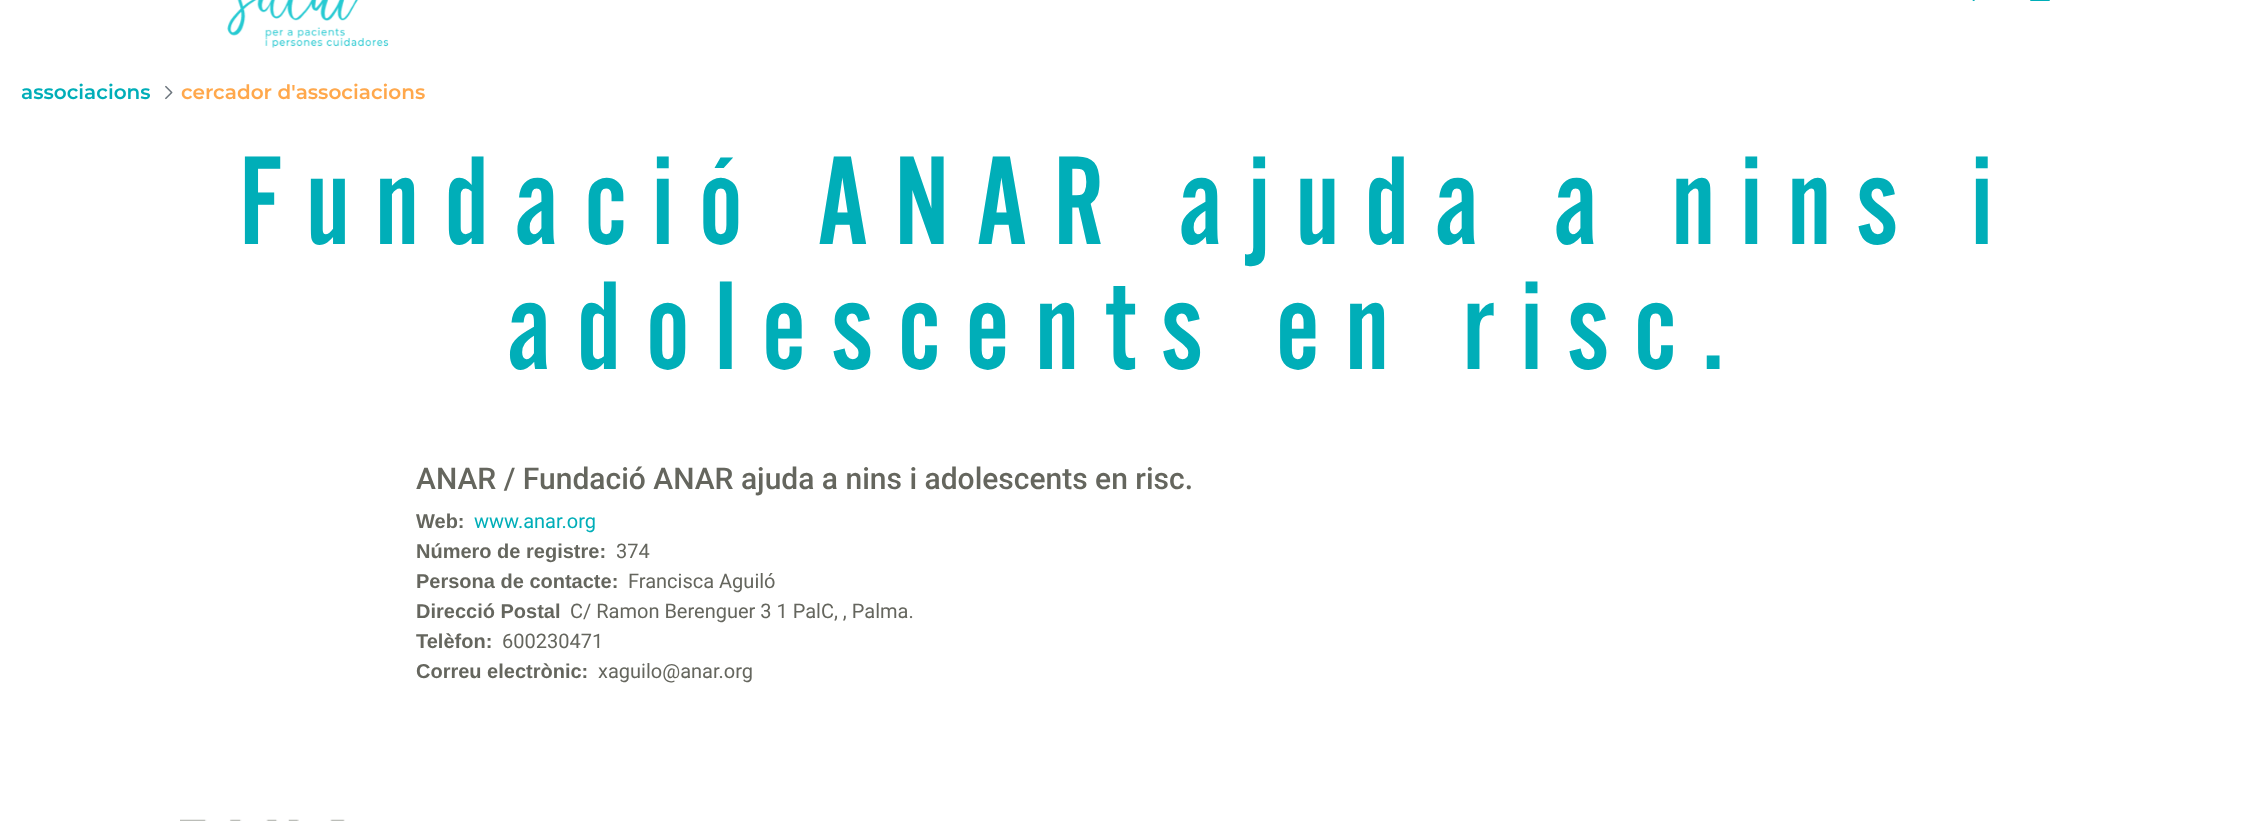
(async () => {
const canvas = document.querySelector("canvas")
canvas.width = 2256
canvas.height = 821
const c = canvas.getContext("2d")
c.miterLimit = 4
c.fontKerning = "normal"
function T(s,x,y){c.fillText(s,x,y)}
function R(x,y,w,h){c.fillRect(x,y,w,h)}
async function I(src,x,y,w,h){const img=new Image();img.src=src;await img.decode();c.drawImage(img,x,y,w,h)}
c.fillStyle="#fff"
R(0,0,2256,821)
await I("1.png",227,0,162,48)
await I("2.png",1972,0,3,1)
await I("3.png",2030,0,20,1)
c.font="600 20px Montserrat"
c.fillStyle="#00aeb8"
T("associacions",21,99)
await I("4.png",165,85,8,15)
c.fillStyle="#ffa84c"
T("cercador d'associacions",181,99)
c.letterSpacing="25px"
c.font="131.25px 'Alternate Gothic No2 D'"
c.fillStyle="#00aeb8"
T("Fundació ANAR ajuda a nins i",239,244)
T("adolescents en risc.",506,369)
c.letterSpacing="0px"
c.font="500 30px Roboto"
c.fillStyle="#65665e"
T("ANAR / Fundació ANAR ajuda a nins i adolescents en risc.",416,489)
c.font="bold 20px Liberation Sans"
T("Web:",416,528)
c.font="20px Roboto"
c.fillStyle="#00aeb8"
T("www.anar.org",474,528)
c.font="bold 20px Liberation Sans"
c.fillStyle="#65665e"
T("Número de registre:",416,558)
c.font="20px Roboto"
T("374",616,558)
c.font="bold 20px Liberation Sans"
T("Persona de contacte:",416,588)
c.font="20px Roboto"
T("Francisca Aguiló",628,588)
c.font="bold 20px Liberation Sans"
T("Direcció Postal",416,618)
c.font="20px Roboto"
T("C/ Ramon Berenguer 3 1 PalC, , Palma.",570,618)
c.font="bold 20px Liberation Sans"
T("Telèfon:",416,648)
c.font="20px Roboto"
T("600230471",502,648)
c.font="bold 20px Liberation Sans"
T("Correu electrònic:",416,678)
c.font="20px Roboto"
T("xaguilo@anar.org",598,678)
await I("5.png",180,819,165,2)
})()
